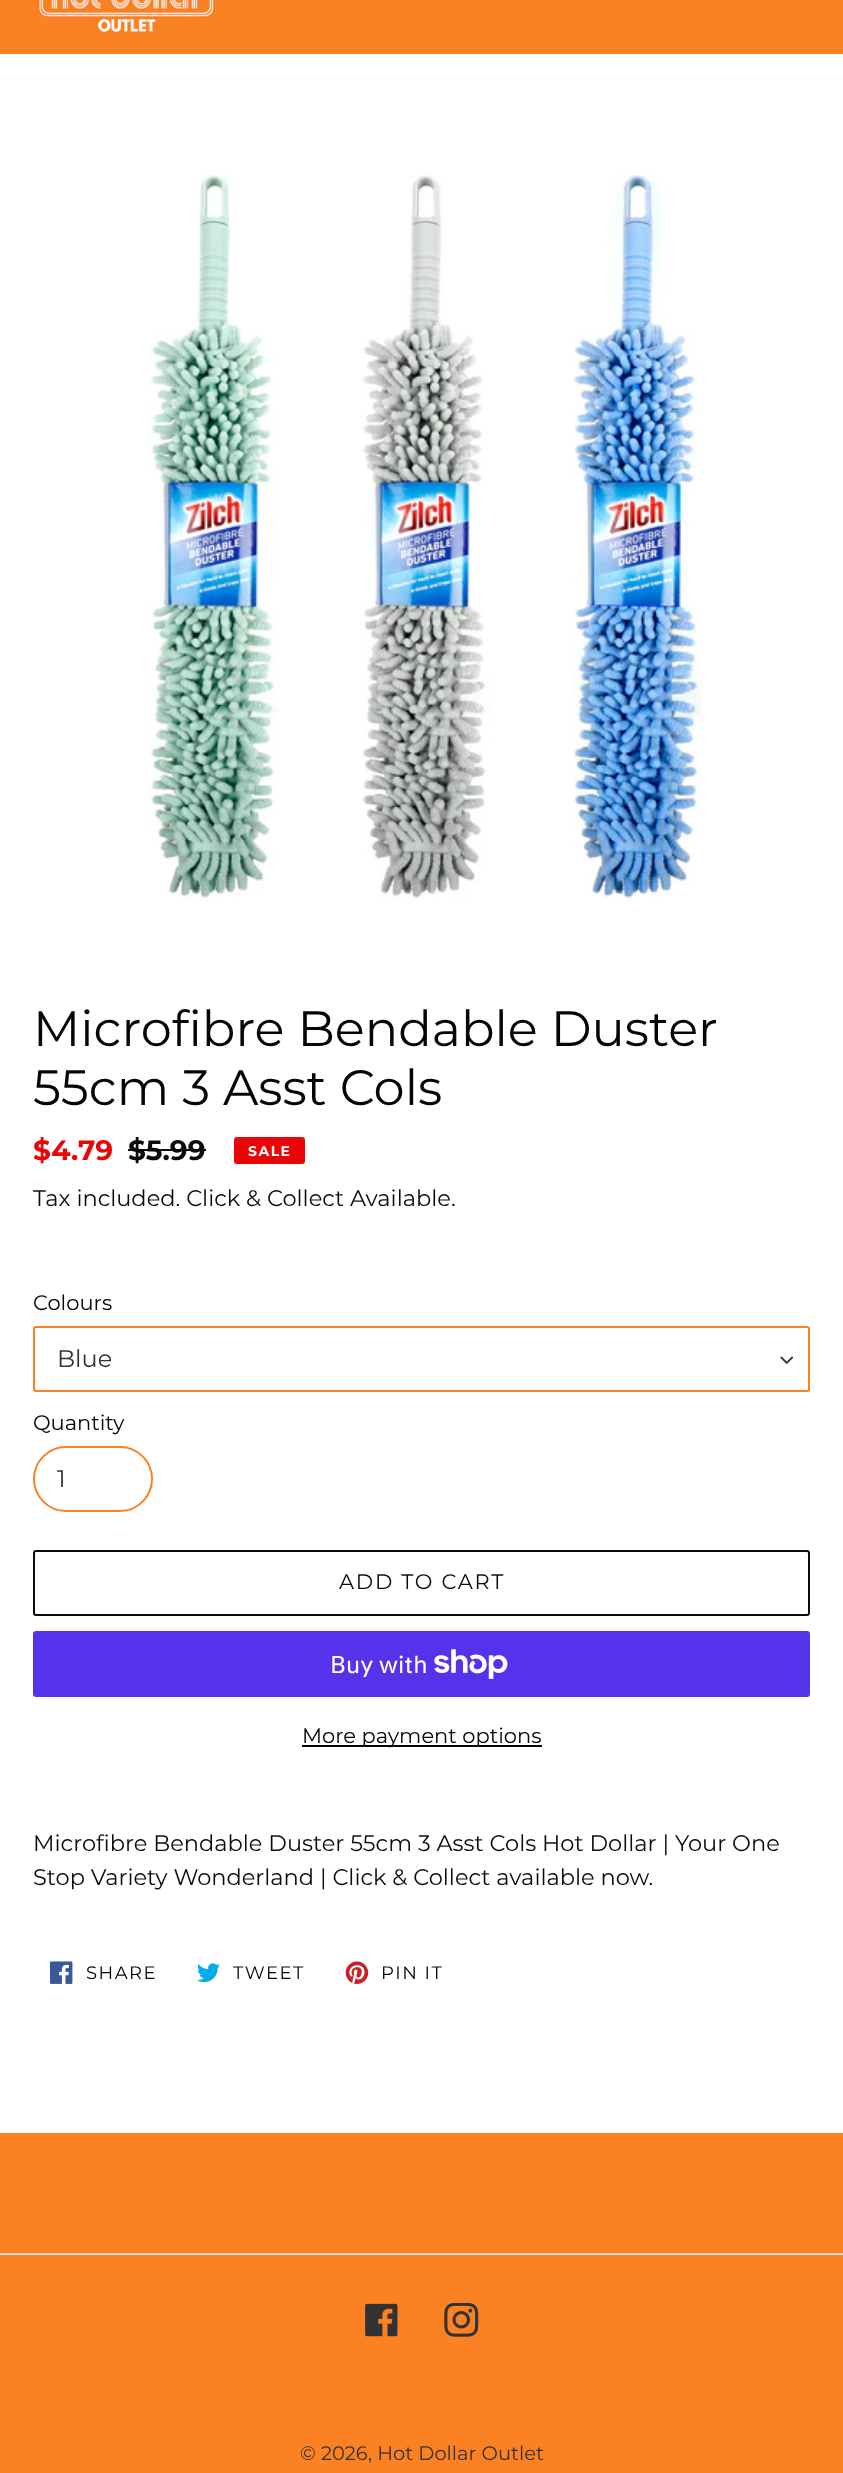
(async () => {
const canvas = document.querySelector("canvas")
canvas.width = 843
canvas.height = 2473
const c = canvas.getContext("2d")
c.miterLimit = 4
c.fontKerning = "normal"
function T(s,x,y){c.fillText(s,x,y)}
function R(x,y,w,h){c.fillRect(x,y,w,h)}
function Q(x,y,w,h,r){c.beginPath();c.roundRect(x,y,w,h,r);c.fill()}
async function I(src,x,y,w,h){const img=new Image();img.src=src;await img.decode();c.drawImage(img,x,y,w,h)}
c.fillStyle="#fff"
R(0,0,843,2473)
c.fillStyle="#fb8122"
R(0,0,843,54)
await I("1.png",34,0,182,34)
await I("2.png",148,170,555,731)
c.font="49.5px Montserrat"
c.fillStyle="#060504"
T("Microfibre Bendable Duster",33,1046)
T("55cm 3 Asst Cols",33,1105)
c.font="bold 28px Montserrat"
c.fillStyle="#ea0606"
T("$4.79",33,1160)
c.fillStyle="#0e0a0a"
T("$5.99",128,1160)
R(128,1149,78,2)
c.fillStyle="#ea0606"
c.beginPath()
c.roundRect(235,1138,69,25,2)
c.fill()
c.strokeStyle="#ea0606"
c.lineWidth=2
c.stroke()
c.letterSpacing="1.5px"
c.font="bold 14px Montserrat"
c.fillStyle="#fff"
T("SALE",248,1156)
c.letterSpacing="0px"
c.font="22.5px Montserrat"
c.fillStyle="#0e0a0a"
T("Tax included. Click & Collect Available.",33,1206)
c.font="21px Montserrat"
c.fillStyle="#060504"
T("Colours",33,1310)
await I("3.png",780,1356,14,8)
c.beginPath()
c.roundRect(34,1327,775,64,2)
c.strokeStyle="#fb8122"
c.stroke()
c.font="24px Montserrat"
c.fillStyle="#333232"
T("Blue",57,1367)
c.font="21px Montserrat"
c.fillStyle="#060504"
T("Quantity",33,1430)
c.beginPath()
c.roundRect(34,1447,118,64,32)
c.stroke()
c.font="24px Montserrat"
c.fillStyle="#333232"
T("1",57,1487)
c.beginPath()
c.roundRect(34,1551,775,64,2)
c.strokeStyle="#0e0a0a"
c.stroke()
c.letterSpacing="1.75px"
c.font="21px Montserrat"
c.fillStyle="#0e0a0a"
T("ADD TO CART",339,1589)
c.fillStyle="#5433eb"
Q(33,1631,777,66,3)
c.letterSpacing="0px"
c.font="24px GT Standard"
c.fillStyle="#fff"
T("Buy with",330,1673)
await I("4.png",434,1649,74,30)
c.fillStyle="#060504"
R(302,1745,240,2)
c.font="21px Montserrat"
T("More payment options",302,1743)
c.font="22.5px Montserrat"
c.fillStyle="#0e0a0a"
T("Microfibre Bendable Duster 55cm 3 Asst Cols Hot Dollar | Your One",33,1851)
T("Stop Variety Wonderland | Click & Collect available now.",33,1885)
await I("5.png",50,1961,23,23)
c.letterSpacing="1.5px"
c.font="18px Montserrat"
c.fillStyle="#060504"
T("SHARE",86,1979)
await I("6.png",197,1963,23,20)
T("TWEET",233,1979)
await I("7.png",345,1961,24,23)
T("PIN IT",381,1979)
c.fillStyle="#fb8122"
R(0,2133,843,340)
c.fillStyle="#ddd"
R(0,2253,843,2)
await I("8.png",365,2303,33,34)
await I("9.png",444,2303,35,34)
c.letterSpacing="0px"
c.font="19.5px Montserrat"
c.fillStyle="#333232"
T("© 2026, Hot Dollar Outlet",300,2460)
})()
